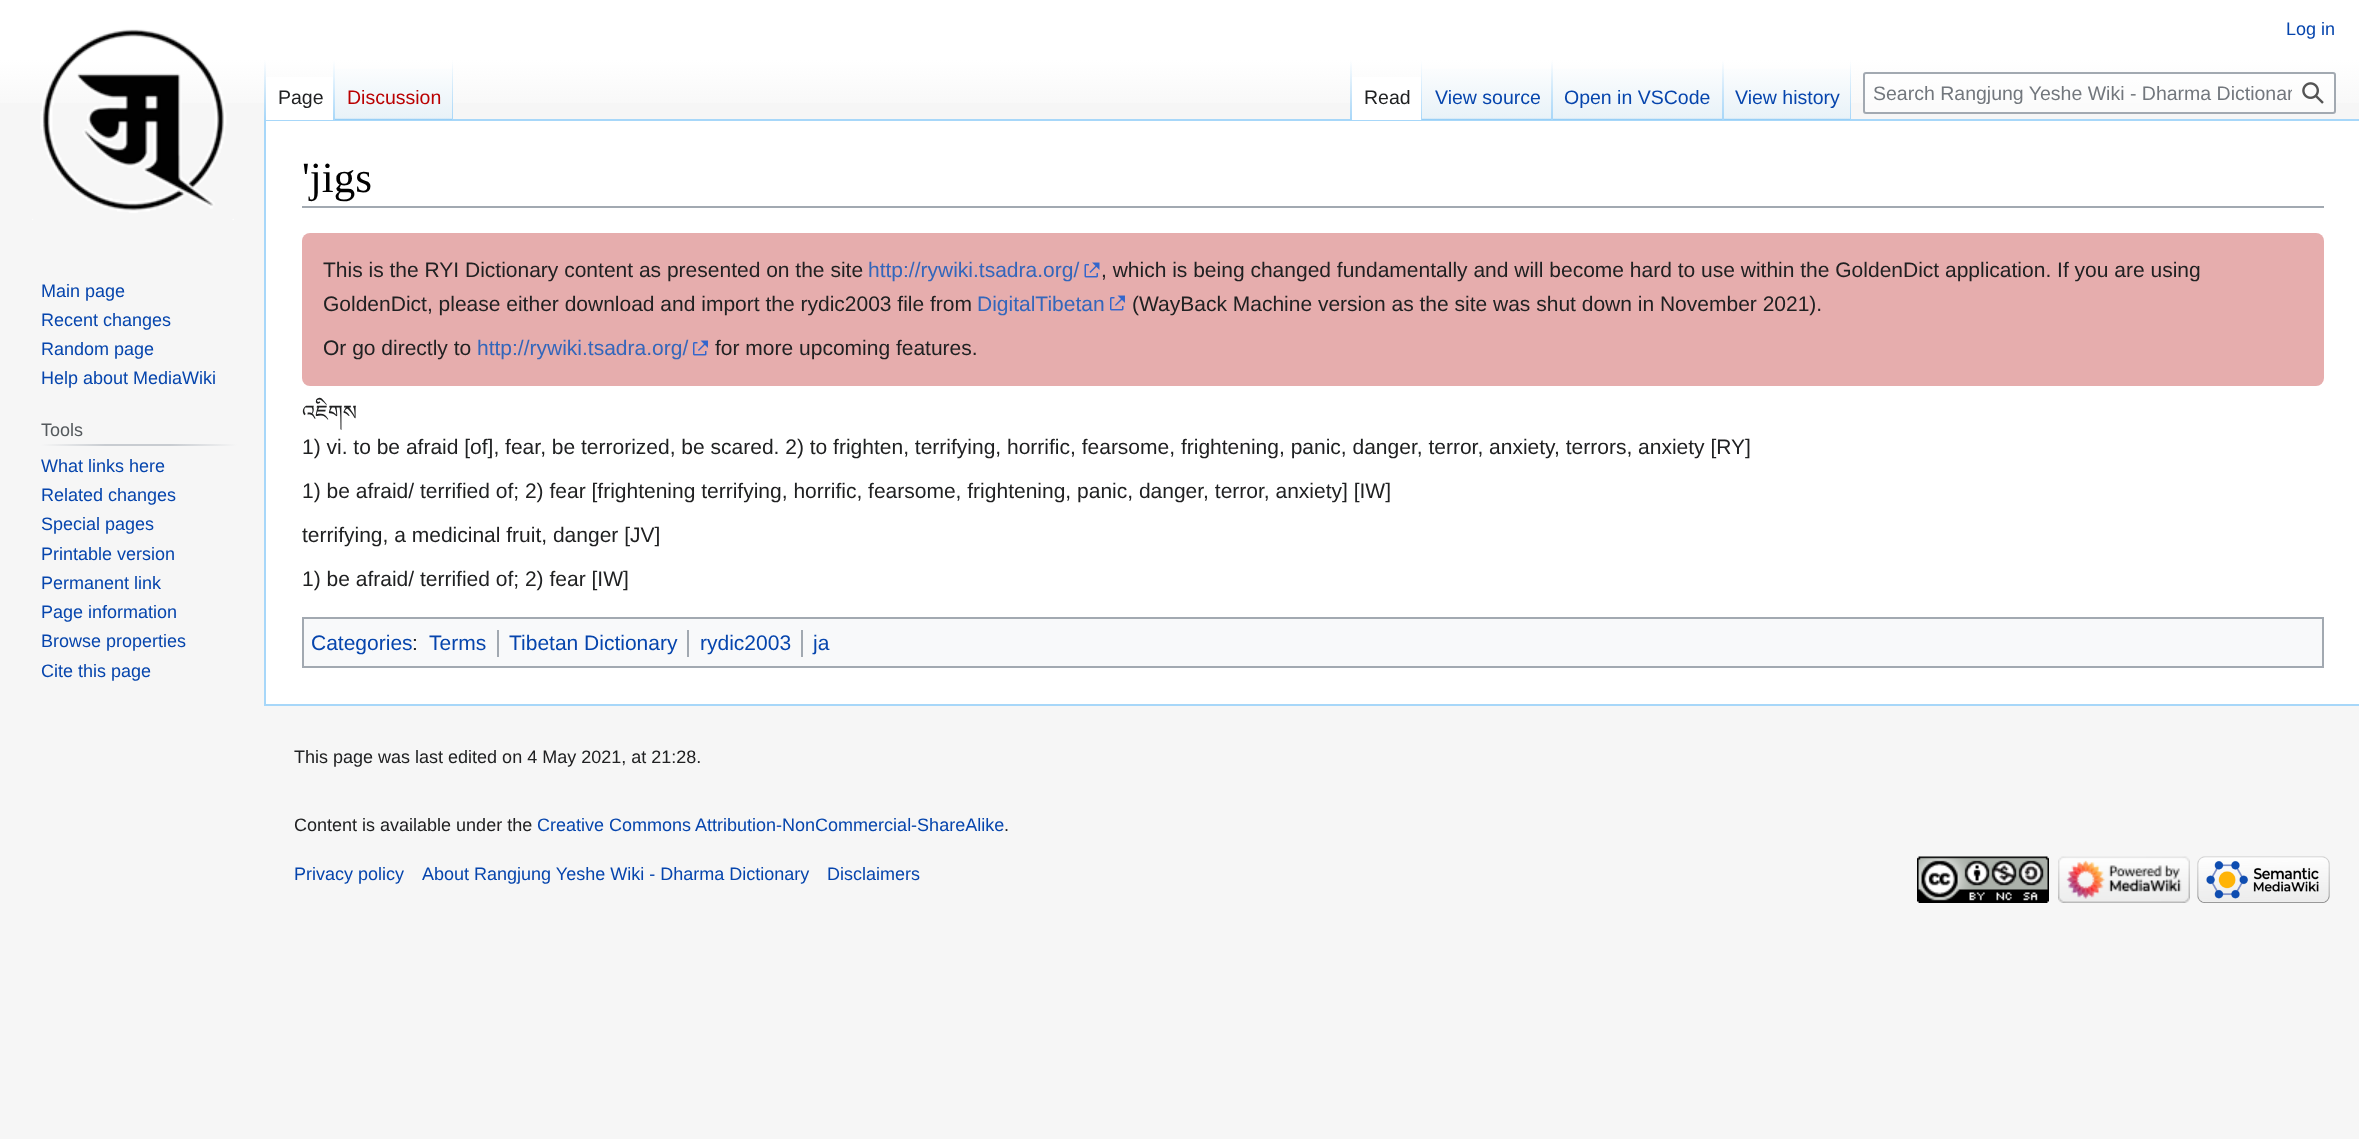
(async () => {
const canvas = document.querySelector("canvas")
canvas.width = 2359
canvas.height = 1139
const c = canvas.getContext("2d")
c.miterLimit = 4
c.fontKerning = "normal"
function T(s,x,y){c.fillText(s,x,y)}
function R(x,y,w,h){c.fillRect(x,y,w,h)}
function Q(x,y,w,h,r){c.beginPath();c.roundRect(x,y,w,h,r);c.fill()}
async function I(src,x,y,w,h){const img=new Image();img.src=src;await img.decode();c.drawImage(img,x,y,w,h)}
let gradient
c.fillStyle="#f6f6f6"
R(0,0,2359,1139)
gradient = c.createLinearGradient(1180,0,1180,120)
gradient.addColorStop(.5,"#fff")
gradient.addColorStop(1,"#f6f6f6")
c.fillStyle = gradient
R(0,0,2359,103)
c.font="18px Liberation Sans"
c.fillStyle="#0645ad"
T("Log in",2286,35)
c.fillStyle="#a7d7f9"
R(264,119,2095,2)
R(264,704,2095,2)
R(264,119,2,586)
gradient = c.createLinearGradient(265,60,265,120)
gradient.addColorStop(0,"#a7d7f900")
gradient.addColorStop(1,"#a7d7f9")
c.fillStyle = gradient
R(264,60,2,60)
c.fillStyle="#fff"
R(266,77,67,43)
gradient = c.createLinearGradient(334,60,334,120)
gradient.addColorStop(0,"#fff")
gradient.addColorStop(1,"#a7d7f9")
c.fillStyle = gradient
R(333,60,2,60)
c.font="19.5px Liberation Sans"
c.fillStyle="#202122"
T("Page",278,104)
gradient = c.createLinearGradient(394,120,394,60)
gradient.addColorStop(0,"#77c1f6")
gradient.addColorStop(.03,"#e8f2f8")
gradient.addColorStop(1,"#fff")
c.fillStyle = gradient
R(335,69,118,51)
gradient = c.createLinearGradient(452,60,452,120)
gradient.addColorStop(0,"#a7d7f900")
gradient.addColorStop(1,"#a7d7f9")
c.fillStyle = gradient
R(452,60,1,60)
c.fillStyle="#ba0000"
T("Discussion",347,104)
gradient = c.createLinearGradient(1351,60,1351,120)
gradient.addColorStop(0,"#a7d7f900")
gradient.addColorStop(1,"#a7d7f9")
c.fillStyle = gradient
R(1350,60,2,60)
c.fillStyle="#fff"
R(1352,77,69,43)
gradient = c.createLinearGradient(1421,60,1421,120)
gradient.addColorStop(0,"#fff")
gradient.addColorStop(1,"#a7d7f9")
c.fillStyle = gradient
R(1421,60,1,60)
c.fillStyle="#202122"
T("Read",1364,104)
gradient = c.createLinearGradient(1487,120,1487,60)
gradient.addColorStop(0,"#77c1f6")
gradient.addColorStop(.03,"#e8f2f8")
gradient.addColorStop(1,"#fff")
c.fillStyle = gradient
R(1422,69,131,51)
gradient = c.createLinearGradient(1552,60,1552,120)
gradient.addColorStop(0,"#a7d7f900")
gradient.addColorStop(1,"#a7d7f9")
c.fillStyle = gradient
R(1551,60,2,60)
c.fillStyle="#0645ad"
T("View source",1435,104)
gradient = c.createLinearGradient(1638,120,1638,60)
gradient.addColorStop(0,"#77c1f6")
gradient.addColorStop(.03,"#e8f2f8")
gradient.addColorStop(1,"#fff")
c.fillStyle = gradient
R(1553,69,171,51)
gradient = c.createLinearGradient(1723,60,1723,120)
gradient.addColorStop(0,"#a7d7f900")
gradient.addColorStop(1,"#a7d7f9")
c.fillStyle = gradient
R(1722,60,2,60)
c.fillStyle="#0645ad"
T("Open in VSCode",1564,104)
gradient = c.createLinearGradient(1787,120,1787,60)
gradient.addColorStop(0,"#77c1f6")
gradient.addColorStop(.03,"#e8f2f8")
gradient.addColorStop(1,"#fff")
c.fillStyle = gradient
R(1724,69,127,51)
gradient = c.createLinearGradient(1850,60,1850,120)
gradient.addColorStop(0,"#a7d7f900")
gradient.addColorStop(1,"#a7d7f9")
c.fillStyle = gradient
R(1850,60,1,60)
c.fillStyle="#0645ad"
T("View history",1735,104)
c.fillStyle="#ffffff80"
c.beginPath()
c.roundRect(1864,73,471,40,2)
c.fill()
c.strokeStyle="#a2a9b1"
c.lineWidth=2
c.stroke()
c.save()
c.beginPath()
c.rect(1874,83,418,22)
c.clip()
c.fillStyle="#72777d"
T("Search Rangjung Yeshe Wiki - Dharma Dictionar",1873,100)
c.restore()
await I("1.png",2302,82,22,22)
await I("2.png",32,29,202,191)
c.font="18px Liberation Sans"
c.fillStyle="#0645ad"
T("Main page",41,297)
T("Recent changes",41,326)
T("Random page",41,355)
T("Help about MediaWiki",41,384)
gradient = c.createLinearGradient(41,445,237,445)
gradient.addColorStop(0,"#f6f6f6")
gradient.addColorStop(.33,"#c8ccd1")
gradient.addColorStop(.66,"#c8ccd1")
gradient.addColorStop(1,"#f6f6f6")
c.fillStyle = gradient
R(41,444,196,2)
c.fillStyle="#54595d"
T("Tools",41,436)
c.fillStyle="#0645ad"
T("What links here",41,472)
T("Related changes",41,501)
T("Special pages",41,530)
T("Printable version",41,560)
T("Permanent link",41,589)
T("Page information",41,618)
T("Browse properties",41,647)
T("Cite this page",41,677)
c.fillStyle="#fff"
R(266,121,2093,583)
c.fillStyle="#a2a9b1"
R(302,206,2022,2)
c.font="43px Liberation Serif"
c.fillStyle="#000"
T("'jigs",302,192)
c.fillStyle="#e6adad"
Q(302,233,2022,153,8)
c.font="21px Liberation Sans"
c.fillStyle="#202122"
T("This is the RYI Dictionary content as presented on the site",323,277)
c.fillStyle="#36b"
T("http://rywiki.tsadra.org/",868,277)
await I("3.png",1084,262,16,16)
c.fillStyle="#202122"
T(", which is being changed fundamentally and will become hard to use within the GoldenDict application. If you are using",1101,277)
T("GoldenDict, please either download and import the rydic2003 file from",323,311)
c.fillStyle="#36b"
T("DigitalTibetan",977,311)
await I("4.png",1110,295,15,16)
c.fillStyle="#202122"
T("(WayBack Machine version as the site was shut down in November 2021).",1132,311)
T("Or go directly to",323,355)
c.fillStyle="#36b"
T("http://rywiki.tsadra.org/",477,355)
await I("4.png",693,340,15,16)
c.fillStyle="#202122"
T("for more upcoming features.",715,355)
c.font="21px Noto Serif Tibetan"
T("འཇིགས",302,420)
c.font="21px Liberation Sans"
T("1) vi. to be afraid [of], fear, be terrorized, be scared. 2) to frighten, terrifying, horrific, fearsome, frightening, panic, danger, terror, anxiety, terrors, anxiety [RY]",302,454)
T("1) be afraid/ terrified of; 2) fear [frightening terrifying, horrific, fearsome, frightening, panic, danger, terror, anxiety] [IW]",302,498)
T("terrifying, a medicinal fruit, danger [JV]",302,542)
T("1) be afraid/ terrified of; 2) fear [IW]",302,586)
c.fillStyle="#f8f9fa"
c.beginPath()
c.rect(303,618,2020,49)
c.fill()
c.stroke()
c.fillStyle="#0645ad"
T("Categories",311,650)
c.fillStyle="#202122"
T(":",412,650)
c.fillStyle="#0645ad"
T("Terms",429,650)
c.fillStyle="#a2a9b1"
R(497,630,2,27)
c.fillStyle="#0645ad"
T("Tibetan Dictionary",509,650)
c.fillStyle="#a2a9b1"
R(687,630,2,27)
c.fillStyle="#0645ad"
T("rydic2003",700,650)
c.fillStyle="#a2a9b1"
R(801,630,2,27)
c.fillStyle="#0645ad"
T("ja",813,650)
c.font="18px Liberation Sans"
c.fillStyle="#202122"
T("This page was last edited on 4 May 2021, at 21:28.",294,763)
T("Content is available under the",294,831)
c.fillStyle="#0645ad"
T("Creative Commons Attribution-NonCommercial-ShareAlike",537,831)
c.fillStyle="#202122"
T(".",1004,831)
c.fillStyle="#0645ad"
T("Privacy policy",294,880)
T("About Rangjung Yeshe Wiki - Dharma Dictionary",422,880)
T("Disclaimers",827,880)
await I("5.png",1917,856,132,47)
await I("6.png",2058,856,132,47)
await I("7.png",2197,856,133,47)
})()
